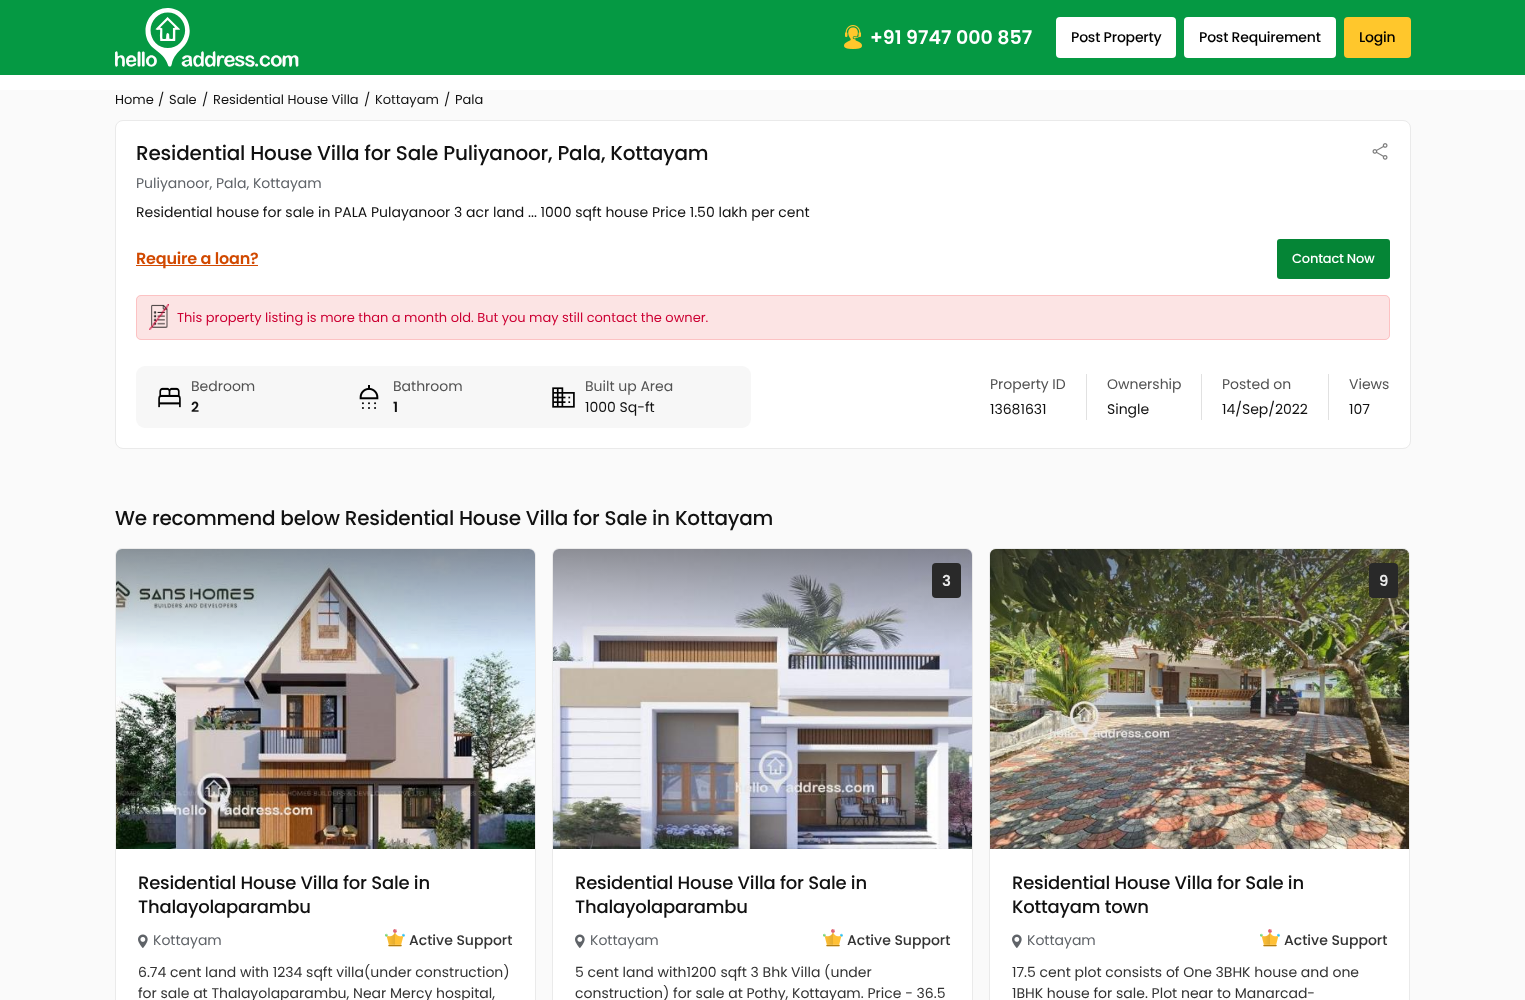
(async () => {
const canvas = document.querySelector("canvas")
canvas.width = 1525
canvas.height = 1000
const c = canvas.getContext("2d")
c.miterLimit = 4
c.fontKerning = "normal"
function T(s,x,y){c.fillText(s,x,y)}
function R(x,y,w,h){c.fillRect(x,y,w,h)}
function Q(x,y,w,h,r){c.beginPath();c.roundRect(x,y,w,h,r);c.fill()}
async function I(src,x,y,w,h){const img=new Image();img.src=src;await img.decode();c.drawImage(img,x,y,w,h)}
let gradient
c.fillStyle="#fff"
R(0,0,1525,1000)
c.fillStyle="#059943"
R(0,0,1525,75)
await I("1.png",115,8,184,59)
await I("2.png",844,25,18,24)
c.font="600 19px Poppins"
c.fillStyle="#fff"
T("+91 9747 000 857",870,44)
Q(1056,17,120,41,4)
c.letterSpacing="-0.2px"
c.font="500 14px Poppins"
c.fillStyle="#000"
T("Post Property",1071,42)
c.fillStyle="#fff"
Q(1184,17,152,41,4)
c.fillStyle="#000"
T("Post Requirement",1199,42)
c.fillStyle="#ffc72c"
Q(1344,17,67,41,4)
c.fillStyle="#000"
T("Login",1359,42)
c.fillStyle="#fafafa"
R(0,90,1525,910)
c.letterSpacing="0px"
c.font="13px Poppins"
c.fillStyle="#111"
T("Home",115,104)
T("/",158,104)
T("Sale",169,104)
T("/",202,104)
T("Residential House Villa",213,104)
T("/",364,104)
T("Kottayam",375,104)
T("/",444,104)
T("Pala",455,104)
c.fillStyle="#fff"
c.beginPath()
c.roundRect(115.5,120.5,1295,328,7.5)
c.fill()
c.strokeStyle="#eaeaea"
c.stroke()
c.letterSpacing="-0.2px"
c.font="500 20px Poppins"
c.fillStyle="#111"
T("Residential House Villa for Sale Puliyanoor, Pala, Kottayam",136,160)
c.letterSpacing="0px"
c.font="14px Poppins"
c.fillStyle="#5f6368"
T("Puliyanoor, Pala, Kottayam",136,188)
c.fillStyle="#111"
T("Residential house for sale in PALA Pulayanoor 3 acr land ... 1000 sqft house Price 1.50 lakh per cent",136,217)
await I("3.png",1372,143,16,17)
c.fillStyle="#d14900"
R(136,265,122,1)
c.letterSpacing="-0.2px"
c.font="600 16px Poppins"
T("Require a loan?",136,264)
c.fillStyle="#058536"
Q(1277,239,113,40,3)
c.font="500 13px Poppins"
c.fillStyle="#fff"
T("Contact Now",1292,263)
c.fillStyle="#fce4e4"
Q(136,295,1254,45,5)
await I("4.png",149,304,20,26)
c.beginPath()
c.roundRect(136.5,295.5,1253,44,4.5)
c.strokeStyle="#fcc2c3"
c.stroke()
c.letterSpacing="0px"
c.font="13px Poppins"
c.fillStyle="#c03"
T("This property listing is more than a month old. But you may still contact the owner.",177,322)
c.fillStyle="#f7f7f7"
Q(136,366,615,62,9)
await I("5.png",158,387,23,21)
c.font="14px Poppins"
c.fillStyle="#525252"
T("Bedroom",191,391)
c.font="600 14px Poppins"
c.fillStyle="#111"
T("2",191,412)
await I("6.png",359,385,20,24)
c.font="14px Poppins"
c.fillStyle="#525252"
T("Bathroom",393,391)
c.font="600 14px Poppins"
c.fillStyle="#111"
T("1",393,412)
await I("7.png",552,387,23,21)
c.font="14px Poppins"
c.fillStyle="#525252"
T("Built up Area",585,391)
c.fillStyle="#111"
T("1000 Sq-ft",585,412)
c.fillStyle="#e1e1e1"
R(1086,374,1,46)
c.fillStyle="#525252"
T("Property ID",990,389)
c.fillStyle="#111"
T("13681631",990,414)
c.fillStyle="#e1e1e1"
R(1201,374,1,46)
c.fillStyle="#525252"
T("Ownership",1107,389)
c.fillStyle="#111"
T("Single",1107,414)
c.fillStyle="#e1e1e1"
R(1328,374,1,46)
c.fillStyle="#525252"
T("Posted on",1222,389)
c.fillStyle="#111"
T("14/Sep/2022",1222,414)
c.fillStyle="#525252"
T("Views",1349,389)
c.fillStyle="#111"
T("107",1349,414)
c.letterSpacing="-0.2px"
c.font="500 20px Poppins"
T("We recommend below Residential House Villa for Sale in Kottayam",115,525)
c.fillStyle="#fff"
c.beginPath()
c.roundRect(115.5,548.5,420,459,6.5)
c.fill()
c.strokeStyle="#eaeaea"
c.stroke()
await I("8.png",116,549,419,300)
gradient = c.createLinearGradient(326,649,326,549)
gradient.addColorStop(0,"#33333300")
gradient.addColorStop(1,"#33333380")
c.fillStyle = gradient
c.beginPath()
c.roundRect(116,549,419,100,[6,6,0,0])
c.fill()
c.font="500 18px Poppins"
c.fillStyle="#111"
T("Residential House Villa for Sale in",138,889)
T("Thalayolaparambu",138,913)
await I("9.png",138,934,10,14)
c.letterSpacing="0px"
c.font="14px Poppins"
c.fillStyle="#5f6368"
T("Kottayam",153,945)
await I("10.png",385,929,20,18)
c.font="500 14px Poppins"
c.fillStyle="#333"
T("Active Support",409,945)
c.font="14px Poppins"
T("6.74 cent land with 1234 sqft villa(under construction)",138,977)
T("for sale at Thalayolaparambu, Near Mercy hospital,",138,998)
c.fillStyle="#fff"
c.beginPath()
c.roundRect(552.5,548.5,420,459,6.5)
c.fill()
c.stroke()
await I("11.png",553,549,419,300)
gradient = c.createLinearGradient(763,649,763,549)
gradient.addColorStop(0,"#33333300")
gradient.addColorStop(1,"#33333380")
c.fillStyle = gradient
c.beginPath()
c.roundRect(553,549,419,100,[6,6,0,0])
c.fill()
c.fillStyle="#292929"
Q(932,563,29,35,4)
c.font="600 15px Poppins"
c.fillStyle="#e9e9e9"
T("3",942,586)
c.letterSpacing="-0.2px"
c.font="500 18px Poppins"
c.fillStyle="#111"
T("Residential House Villa for Sale in",575,889)
T("Thalayolaparambu",575,913)
await I("9.png",575,934,10,14)
c.letterSpacing="0px"
c.font="14px Poppins"
c.fillStyle="#5f6368"
T("Kottayam",590,945)
await I("10.png",823,929,20,18)
c.font="500 14px Poppins"
c.fillStyle="#333"
T("Active Support",847,945)
c.font="14px Poppins"
T("5 cent land with1200 sqft 3 Bhk Villa (under",575,977)
T("construction) for sale at Pothy, Kottayam. Price - 36.5",575,998)
c.fillStyle="#fff"
c.beginPath()
c.roundRect(989.5,548.5,420,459,6.5)
c.fill()
c.stroke()
await I("12.png",990,549,419,300)
gradient = c.createLinearGradient(1200,649,1200,549)
gradient.addColorStop(0,"#33333300")
gradient.addColorStop(1,"#33333380")
c.fillStyle = gradient
c.beginPath()
c.roundRect(990,549,419,100,[6,6,0,0])
c.fill()
c.fillStyle="#292929"
Q(1369,563,29,35,4)
c.font="600 15px Poppins"
c.fillStyle="#e9e9e9"
T("9",1379,586)
c.letterSpacing="-0.2px"
c.font="500 18px Poppins"
c.fillStyle="#111"
T("Residential House Villa for Sale in",1012,889)
T("Kottayam town",1012,913)
await I("9.png",1012,934,10,14)
c.letterSpacing="0px"
c.font="14px Poppins"
c.fillStyle="#5f6368"
T("Kottayam",1027,945)
await I("10.png",1260,929,20,18)
c.font="500 14px Poppins"
c.fillStyle="#333"
T("Active Support",1284,945)
c.font="14px Poppins"
T("17.5 cent plot consists of One 3BHK house and one",1012,977)
T("1BHK house for sale. Plot near to Manarcad-",1012,998)
})()
